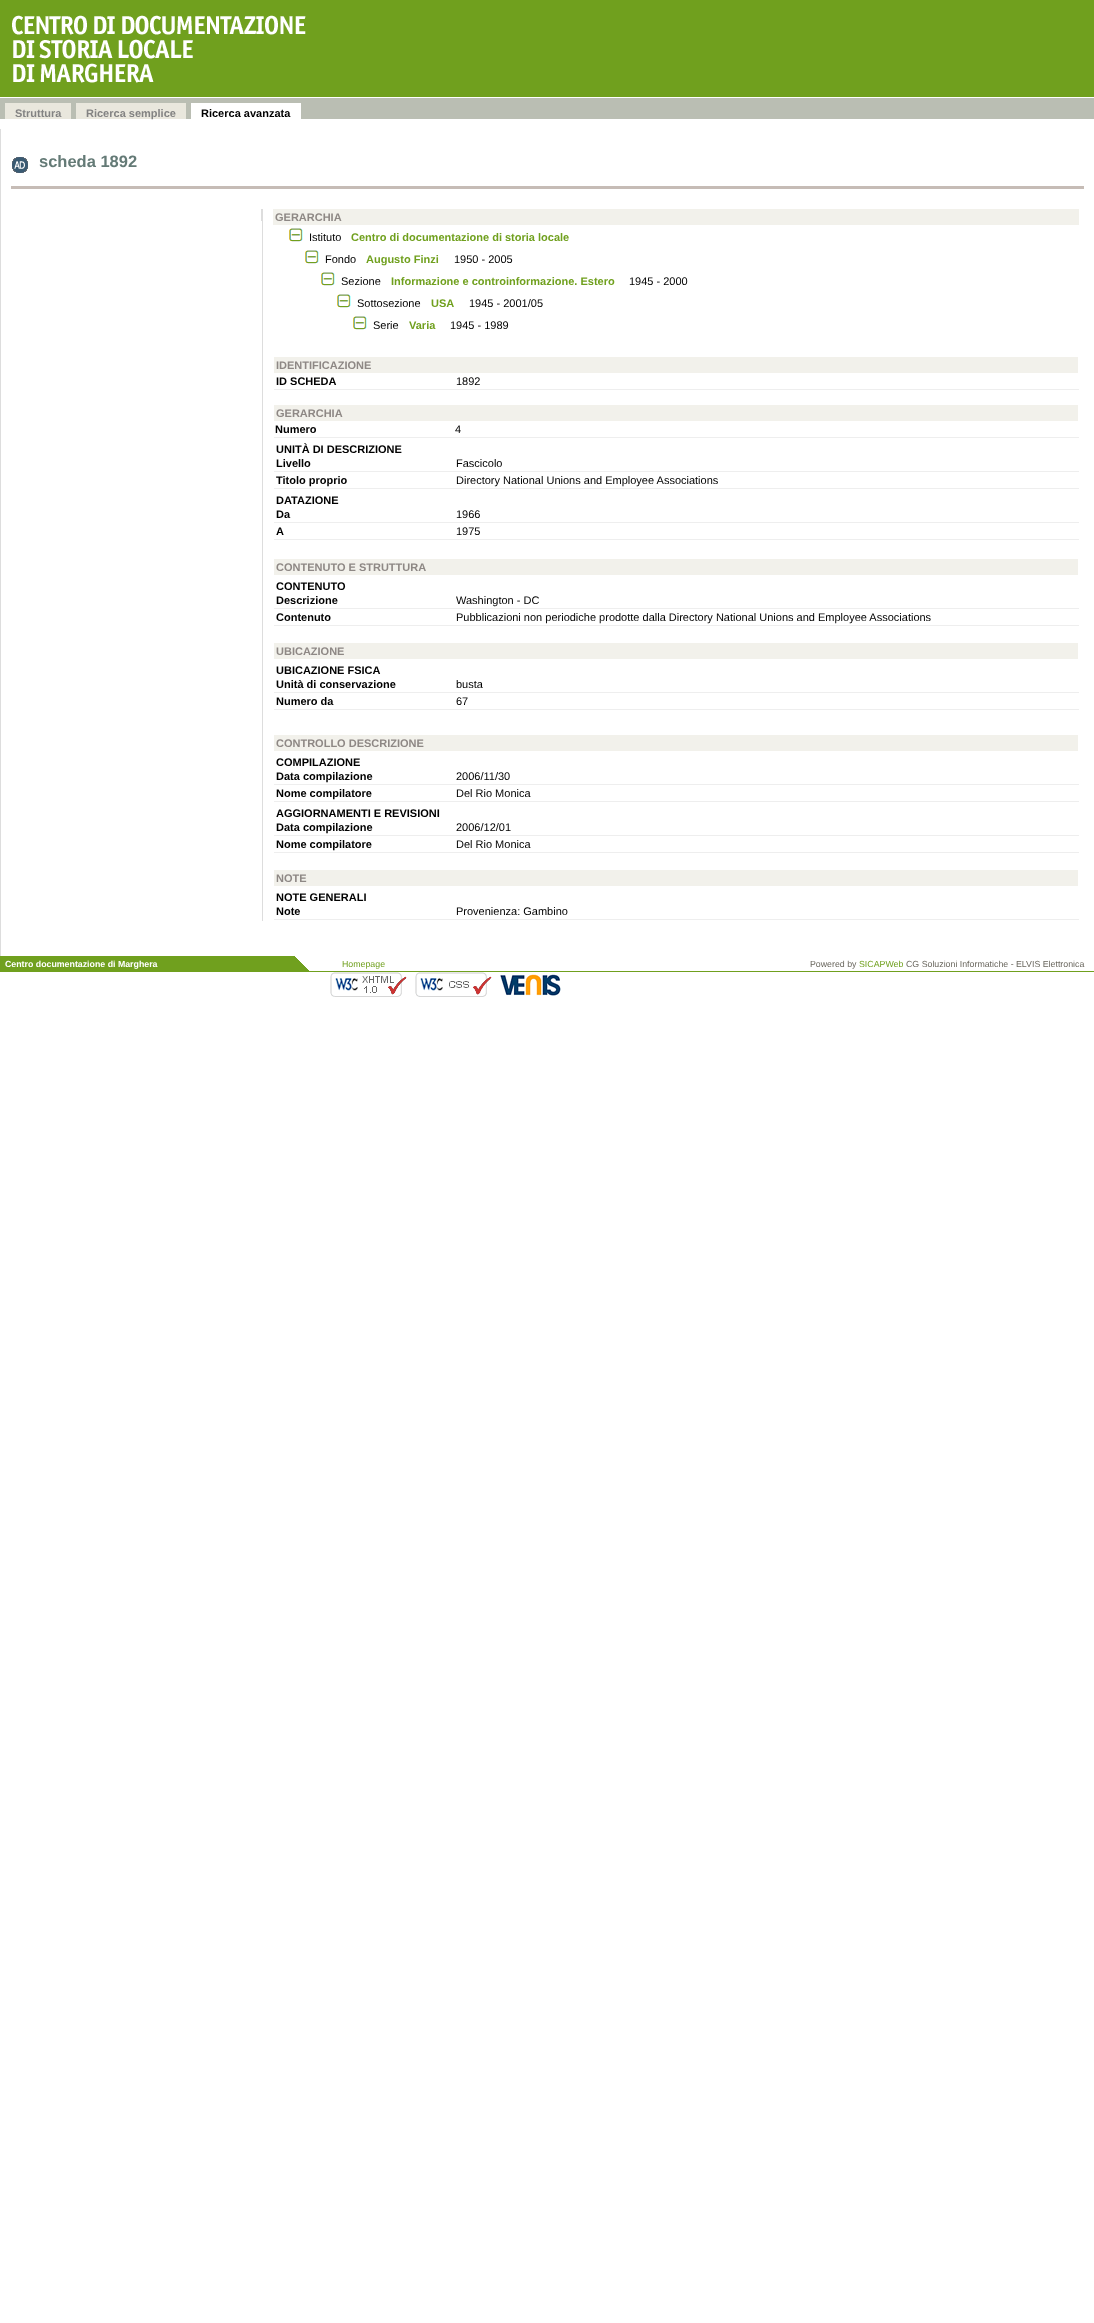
(async () => {
const canvas = document.querySelector("canvas")
canvas.width = 1094
canvas.height = 2323
const c = canvas.getContext("2d")
c.miterLimit = 4
c.fontKerning = "normal"
function T(s,x,y){c.fillText(s,x,y)}
function R(x,y,w,h){c.fillRect(x,y,w,h)}
async function I(src,x,y,w,h){const img=new Image();img.src=src;await img.decode();c.drawImage(img,x,y,w,h)}
c.fillStyle="#fff"
R(0,0,1094,2323)
c.fillStyle="#70a01e"
R(0,0,1094,97)
await I("1.png",12,15,294,68)
c.fillStyle="#babeb3"
R(0,98,1094,21)
c.fillStyle="#e9e7dd"
R(5,103,66,16)
c.font="bold 11px Liberation Sans"
c.fillStyle="#838383"
T("Struttura",15,117)
c.fillStyle="#e9e7dd"
R(76,103,110,16)
c.fillStyle="#838383"
T("Ricerca semplice",86,117)
c.fillStyle="#fff"
R(191,103,110,16)
c.fillStyle="#000"
T("Ricerca avanzata",201,117)
c.fillStyle="#ddd"
R(0,129,1,827)
c.fillStyle="#c6bcb6"
R(11,186,1073,3)
await I("2.png",12,157,16,16)
c.font="bold 16.5px Liberation Sans"
c.fillStyle="#647a76"
T("scheda 1892",39,167)
c.fillStyle="#ddd"
R(261,209,1,12)
R(262,209,1,712)
c.fillStyle="#f2f1eb"
R(273,209,806,16)
c.font="bold 11px Liberation Sans"
c.fillStyle="#8e8885"
T("GERARCHIA",275,221)
await I("3.png",289,228,14,14)
c.font="11px Liberation Sans"
c.fillStyle="#000"
T("Istituto",309,241)
c.font="bold 11px Liberation Sans"
c.fillStyle="#70a01e"
T("Centro di documentazione di storia locale",351,241)
await I("3.png",305,250,14,14)
c.font="11px Liberation Sans"
c.fillStyle="#000"
T("Fondo",325,263)
c.font="bold 11px Liberation Sans"
c.fillStyle="#70a01e"
T("Augusto Finzi",366,263)
c.font="11px Liberation Sans"
c.fillStyle="#000"
T("1950 - 2005",454,263)
await I("3.png",321,272,14,14)
T("Sezione",341,285)
c.font="bold 11px Liberation Sans"
c.fillStyle="#70a01e"
T("Informazione e controinformazione. Estero",391,285)
c.font="11px Liberation Sans"
c.fillStyle="#000"
T("1945 - 2000",629,285)
await I("3.png",337,294,14,14)
T("Sottosezione",357,307)
c.font="bold 11px Liberation Sans"
c.fillStyle="#70a01e"
T("USA",431,307)
c.font="11px Liberation Sans"
c.fillStyle="#000"
T("1945 - 2001/05",469,307)
await I("3.png",353,316,14,14)
T("Serie",373,329)
c.font="bold 11px Liberation Sans"
c.fillStyle="#70a01e"
T("Varia",409,329)
c.font="11px Liberation Sans"
c.fillStyle="#000"
T("1945 - 1989",450,329)
c.fillStyle="#f2f1eb"
R(274,357,804,16)
c.font="bold 11px Liberation Sans"
c.fillStyle="#8e8885"
T("IDENTIFICAZIONE",276,369)
c.fillStyle="#000"
T("ID SCHEDA",276,385)
c.fillStyle="#eee"
R(274,389,805,1)
c.font="11px Liberation Sans"
c.fillStyle="#000"
T("1892",456,385)
c.fillStyle="#f2f1eb"
R(274,405,804,16)
c.font="bold 11px Liberation Sans"
c.fillStyle="#8e8885"
T("GERARCHIA",276,417)
c.fillStyle="#000"
T("Numero",275,433)
c.fillStyle="#eee"
R(274,437,805,1)
c.font="11px Liberation Sans"
c.fillStyle="#000"
T("4",455,433)
c.font="bold 11px Liberation Sans"
T("UNITÀ DI DESCRIZIONE",276,453)
T("Livello",276,467)
c.fillStyle="#eee"
R(274,471,805,1)
c.font="11px Liberation Sans"
c.fillStyle="#000"
T("Fascicolo",456,467)
c.font="bold 11px Liberation Sans"
T("Titolo proprio",276,484)
c.fillStyle="#eee"
R(274,488,805,1)
c.font="11px Liberation Sans"
c.fillStyle="#000"
T("Directory National Unions and Employee Associations",456,484)
c.font="bold 11px Liberation Sans"
T("DATAZIONE",276,504)
T("Da",276,518)
c.fillStyle="#eee"
R(274,522,805,1)
c.font="11px Liberation Sans"
c.fillStyle="#000"
T("1966",456,518)
c.font="bold 11px Liberation Sans"
T("A",276,535)
c.fillStyle="#eee"
R(274,539,805,1)
c.font="11px Liberation Sans"
c.fillStyle="#000"
T("1975",456,535)
c.fillStyle="#f2f1eb"
R(274,559,804,16)
c.font="bold 11px Liberation Sans"
c.fillStyle="#8e8885"
T("CONTENUTO E STRUTTURA",276,571)
c.fillStyle="#000"
T("CONTENUTO",276,590)
T("Descrizione",276,604)
c.fillStyle="#eee"
R(274,608,805,1)
c.font="11px Liberation Sans"
c.fillStyle="#000"
T("Washington - DC",456,604)
c.font="bold 11px Liberation Sans"
T("Contenuto",276,621)
c.fillStyle="#eee"
R(274,625,805,1)
c.font="11px Liberation Sans"
c.fillStyle="#000"
T("Pubblicazioni non periodiche prodotte dalla Directory National Unions and Employee Associations",456,621)
c.fillStyle="#f2f1eb"
R(274,643,804,16)
c.font="bold 11px Liberation Sans"
c.fillStyle="#8e8885"
T("UBICAZIONE",276,655)
c.fillStyle="#000"
T("UBICAZIONE FSICA",276,674)
T("Unità di conservazione",276,688)
c.fillStyle="#eee"
R(274,692,805,1)
c.font="11px Liberation Sans"
c.fillStyle="#000"
T("busta",456,688)
c.font="bold 11px Liberation Sans"
T("Numero da",276,705)
c.fillStyle="#eee"
R(274,709,805,1)
c.font="11px Liberation Sans"
c.fillStyle="#000"
T("67",456,705)
c.fillStyle="#f2f1eb"
R(274,735,804,16)
c.font="bold 11px Liberation Sans"
c.fillStyle="#8e8885"
T("CONTROLLO DESCRIZIONE",276,747)
c.fillStyle="#000"
T("COMPILAZIONE",276,766)
T("Data compilazione",276,780)
c.fillStyle="#eee"
R(274,784,805,1)
c.font="11px Liberation Sans"
c.fillStyle="#000"
T("2006/11/30",456,780)
c.font="bold 11px Liberation Sans"
T("Nome compilatore",276,797)
c.fillStyle="#eee"
R(274,801,805,1)
c.font="11px Liberation Sans"
c.fillStyle="#000"
T("Del Rio Monica",456,797)
c.font="bold 11px Liberation Sans"
T("AGGIORNAMENTI E REVISIONI",276,817)
T("Data compilazione",276,831)
c.fillStyle="#eee"
R(274,835,805,1)
c.font="11px Liberation Sans"
c.fillStyle="#000"
T("2006/12/01",456,831)
c.font="bold 11px Liberation Sans"
T("Nome compilatore",276,848)
c.fillStyle="#eee"
R(274,852,805,1)
c.font="11px Liberation Sans"
c.fillStyle="#000"
T("Del Rio Monica",456,848)
c.fillStyle="#f2f1eb"
R(274,870,804,16)
c.font="bold 11px Liberation Sans"
c.fillStyle="#8e8885"
T("NOTE",276,882)
c.fillStyle="#000"
T("NOTE GENERALI",276,901)
T("Note",276,915)
c.fillStyle="#eee"
R(274,919,805,1)
c.font="11px Liberation Sans"
c.fillStyle="#000"
T("Provenienza: Gambino",456,915)
c.fillStyle="#70a01e"
R(0,971,1094,1)
R(0,956,207,15)
c.font="bold 8.8px Liberation Sans"
c.fillStyle="#fff"
T("Centro documentazione di Marghera",5,967)
await I("4.png",207,956,102,15)
c.font="8.8px Liberation Sans"
c.fillStyle="#70a01e"
T("Homepage",342,967)
c.fillStyle="#6a675e"
T("Powered by",810,967)
c.fillStyle="#70a01e"
T("SICAPWeb",859,967)
c.fillStyle="#6a675e"
T("CG Soluzioni Informatiche - ELVIS Elettronica",906,967)
await I("5.png",330,972,77,25)
await I("6.png",415,972,77,25)
await I("7.png",500,974,61,22)
})()
